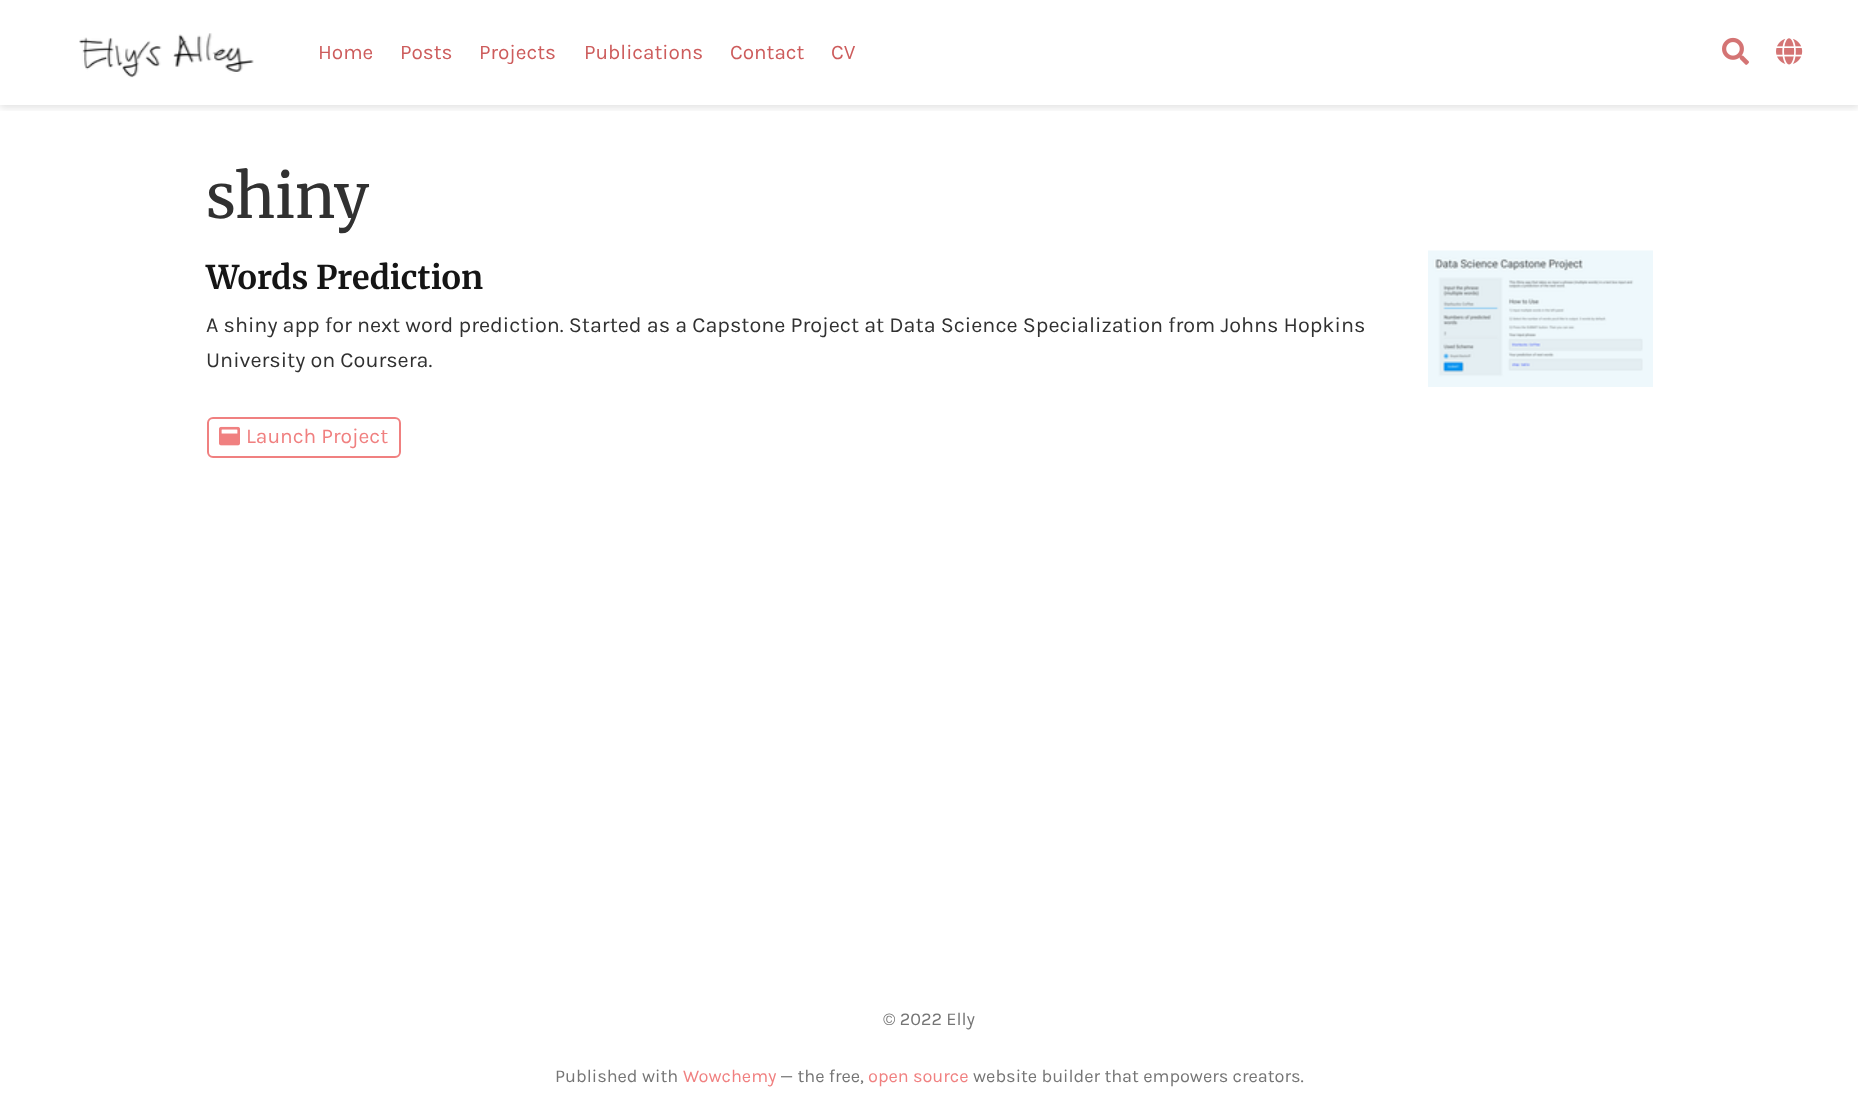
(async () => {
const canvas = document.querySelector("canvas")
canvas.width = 1858
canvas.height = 1118
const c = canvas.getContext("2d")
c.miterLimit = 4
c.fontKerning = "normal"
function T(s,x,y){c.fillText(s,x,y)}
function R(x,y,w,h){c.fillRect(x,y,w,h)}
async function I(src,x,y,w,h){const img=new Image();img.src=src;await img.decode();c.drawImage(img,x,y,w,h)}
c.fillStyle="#fff"
R(0,0,1858,1118)
c.save()
c.beginPath()
c.rect(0,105,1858,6)
c.clip()
c.fillStyle="#0000001c"
c.filter="blur(3.5px)"
c.beginPath()
c.rect(0,3,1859,105)
c.fill()
c.filter="none"
c.restore()
await I("1.png",79,33,175,45)
c.font="20.75px Karla"
c.fillStyle="#cd5c5c"
T("Home",318,59)
T("Posts",400,59)
T("Projects",479,59)
T("Publications",584,59)
T("Contact",730,59)
T("CV",831,59)
await I("2.png",1722,37,27,28)
await I("3.png",1776,38,27,27)
c.font="61px Merriweather"
c.fillStyle="#313131"
T("shiny",206,218)
c.font="bold 32.5px Merriweather"
c.fillStyle="#151515"
T("Words Prediction",206,289)
c.font="21.6px Karla"
c.fillStyle="#313131"
T("A shiny app for next word prediction. Started as a Capstone Project at Data Science Specialization from Johns Hopkins",206,332)
T("University on Coursera.",206,367)
c.beginPath()
c.roundRect(208,418,192,39,5)
c.strokeStyle="#f08080"
c.lineWidth=2
c.stroke()
await I("4.png",219,426,21,20)
c.font="21px Karla"
c.fillStyle="#f08080"
T("Launch Project",246,443)
await I("5.png",1428,250,225,137)
c.font="18.1px Karla"
c.fillStyle="#757575"
T("© 2022 Elly",883,1025)
T("Published with",555,1082)
c.fillStyle="#f08080"
T("Wowchemy",683,1082)
c.fillStyle="#757575"
T("— the free,",780,1082)
c.fillStyle="#f08080"
T("open source",868,1082)
c.fillStyle="#757575"
T("website builder that empowers creators.",973,1082)
})()
